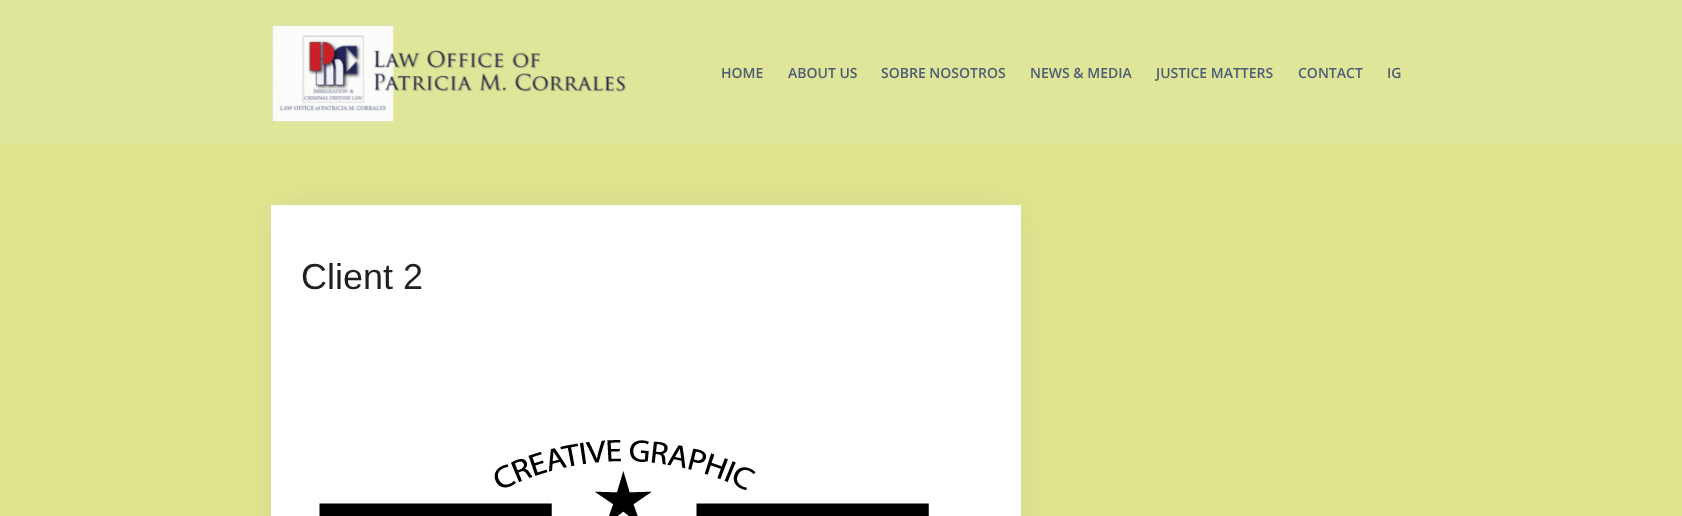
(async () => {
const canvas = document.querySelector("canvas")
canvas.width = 1682
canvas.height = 516
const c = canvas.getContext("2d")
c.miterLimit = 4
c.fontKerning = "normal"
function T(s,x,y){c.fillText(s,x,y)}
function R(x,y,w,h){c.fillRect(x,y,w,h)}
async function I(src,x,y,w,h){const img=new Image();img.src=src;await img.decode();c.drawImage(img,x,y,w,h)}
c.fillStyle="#e0e58e"
R(0,0,1682,516)
c.fillStyle="#dfe599"
R(0,0,1682,145)
await I("1.png",272,25,354,97)
c.font="600 14px Open Sans"
c.fillStyle="#4f5d75"
T("HOME",721,78)
T("ABOUT US",788,78)
T("SOBRE NOSOTROS",881,78)
T("NEWS & MEDIA",1030,78)
T("JUSTICE MATTERS",1156,78)
T("CONTACT",1298,78)
T("IG",1387,78)
c.fillStyle="#7a7a7a1a"
c.filter="blur(16px)"
c.beginPath()
c.rect(271,205,750,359)
c.fill()
c.filter="none"
c.fillStyle="#fff"
R(271,205,750,311)
c.font="36px Liberation Sans"
c.fillStyle="#212121"
T("Client 2",301,289)
await I("2.png",319,440,610,76)
})()
